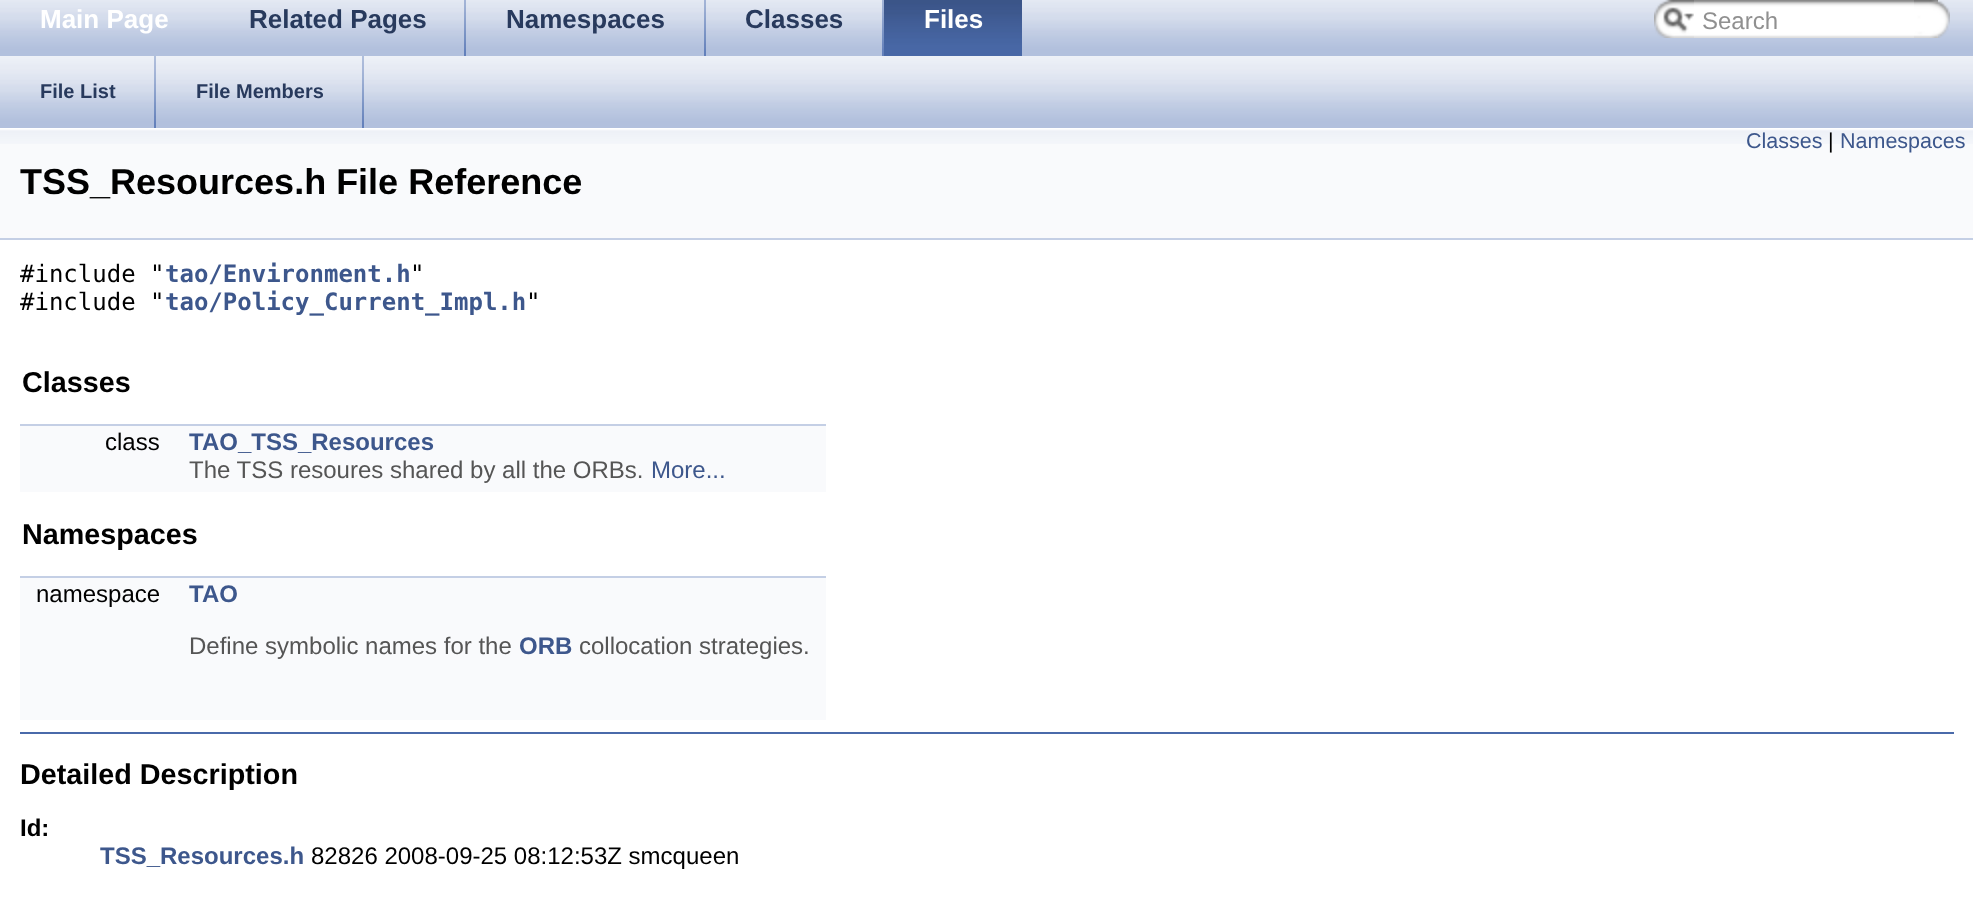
(async () => {
const canvas = document.querySelector("canvas")
canvas.width = 1973
canvas.height = 901
const c = canvas.getContext("2d")
c.miterLimit = 4
c.fontKerning = "normal"
function T(s,x,y){c.fillText(s,x,y)}
function R(x,y,w,h){c.fillRect(x,y,w,h)}
async function I(src,x,y,w,h){const img=new Image();img.src=src;await img.decode();c.drawImage(img,x,y,w,h)}
c.fillStyle="#fff"
R(0,0,1973,901)
await I("1.png",0,0,1973,56)
c.font="bold 26px Liberation Sans"
T("Main Page",40,28)
await I("2.png",464,0,2,56)
c.fillStyle="#283a5d"
T("Related Pages",249,28)
await I("2.png",704,0,2,56)
T("Namespaces",506,28)
await I("2.png",882,0,2,56)
T("Classes",745,28)
await I("3.png",884,0,138,56)
c.fillStyle="#fff"
T("Files",924,28)
await I("4.png",1654,0,40,38)
await I("5.png",1663,7,31,26)
await I("6.png",1694,0,244,38)
c.font="24px Liberation Sans"
c.fillStyle="#909090"
T("Search",1702,29)
await I("7.png",1914,0,36,38)
await I("8.png",0,56,1973,72)
await I("9.png",154,56,2,72)
c.font="bold 20px Liberation Sans"
c.fillStyle="#283a5d"
T("File List",40,98)
await I("9.png",362,56,2,72)
T("File Members",196,98)
c.fillStyle="#f9fafc"
R(0,144,1973,94)
await I("10.png",0,128,1973,16)
c.fillStyle="#c4cfe5"
R(0,238,1973,2)
c.font="21.5px Liberation Sans"
c.fillStyle="#3d578c"
T("Classes",1746,148)
c.fillStyle="#000"
T("|",1828,148)
c.fillStyle="#3d578c"
T("Namespaces",1840,148)
c.font="bold 36px Liberation Sans"
c.fillStyle="#000"
T("TSS_Resources.h File Reference",20,194)
c.font="24px DejaVu Sans Mono"
T("#include \"",20,282)
c.font="bold 24px DejaVu Sans Mono"
c.fillStyle="#3d578c"
T("tao/Environment.h",165,282)
c.font="24px DejaVu Sans Mono"
c.fillStyle="#000"
T("\"",410,282)
T("#include \"",20,310)
c.font="bold 24px DejaVu Sans Mono"
c.fillStyle="#3d578c"
T("tao/Policy_Current_Impl.h",165,310)
c.font="24px DejaVu Sans Mono"
c.fillStyle="#000"
T("\"",526,310)
c.font="bold 28.75px Liberation Sans"
T("Classes",22,392)
c.fillStyle="#f9fafc"
R(20,426,806,30)
c.fillStyle="#c4cfe5"
R(20,424,806,2)
c.font="24px Liberation Sans"
c.fillStyle="#000"
T("class",105,450)
c.font="bold 24px Liberation Sans"
c.fillStyle="#3d578c"
T("TAO_TSS_Resources",189,450)
c.fillStyle="#f9fafc"
R(20,456,806,36)
c.font="24px Liberation Sans"
c.fillStyle="#555"
T("The TSS resoures shared by all the ORBs.",189,478)
c.fillStyle="#3d578c"
T("More...",651,478)
c.font="bold 28.75px Liberation Sans"
c.fillStyle="#000"
T("Namespaces",22,544)
c.fillStyle="#f9fafc"
R(20,578,806,30)
c.fillStyle="#c4cfe5"
R(20,576,806,2)
c.font="24px Liberation Sans"
c.fillStyle="#000"
T("namespace",36,602)
c.font="bold 24px Liberation Sans"
c.fillStyle="#3d578c"
T("TAO",189,602)
c.fillStyle="#f9fafc"
R(20,608,806,112)
c.font="24px Liberation Sans"
c.fillStyle="#555"
T("Define symbolic names for the",189,654)
c.font="bold 24px Liberation Sans"
c.fillStyle="#3d578c"
T("ORB",519,654)
c.font="24px Liberation Sans"
c.fillStyle="#555"
T("collocation strategies.",579,654)
c.fillStyle="#4a6aaa"
R(20,732,1934,2)
c.font="bold 28.75px Liberation Sans"
c.fillStyle="#000"
T("Detailed Description",20,784)
c.font="bold 24px Liberation Sans"
T("Id:",20,836)
c.fillStyle="#3d578c"
T("TSS_Resources.h",100,864)
c.font="24px Liberation Sans"
c.fillStyle="#000"
T("82826 2008-09-25 08:12:53Z smcqueen",311,864)
})()
